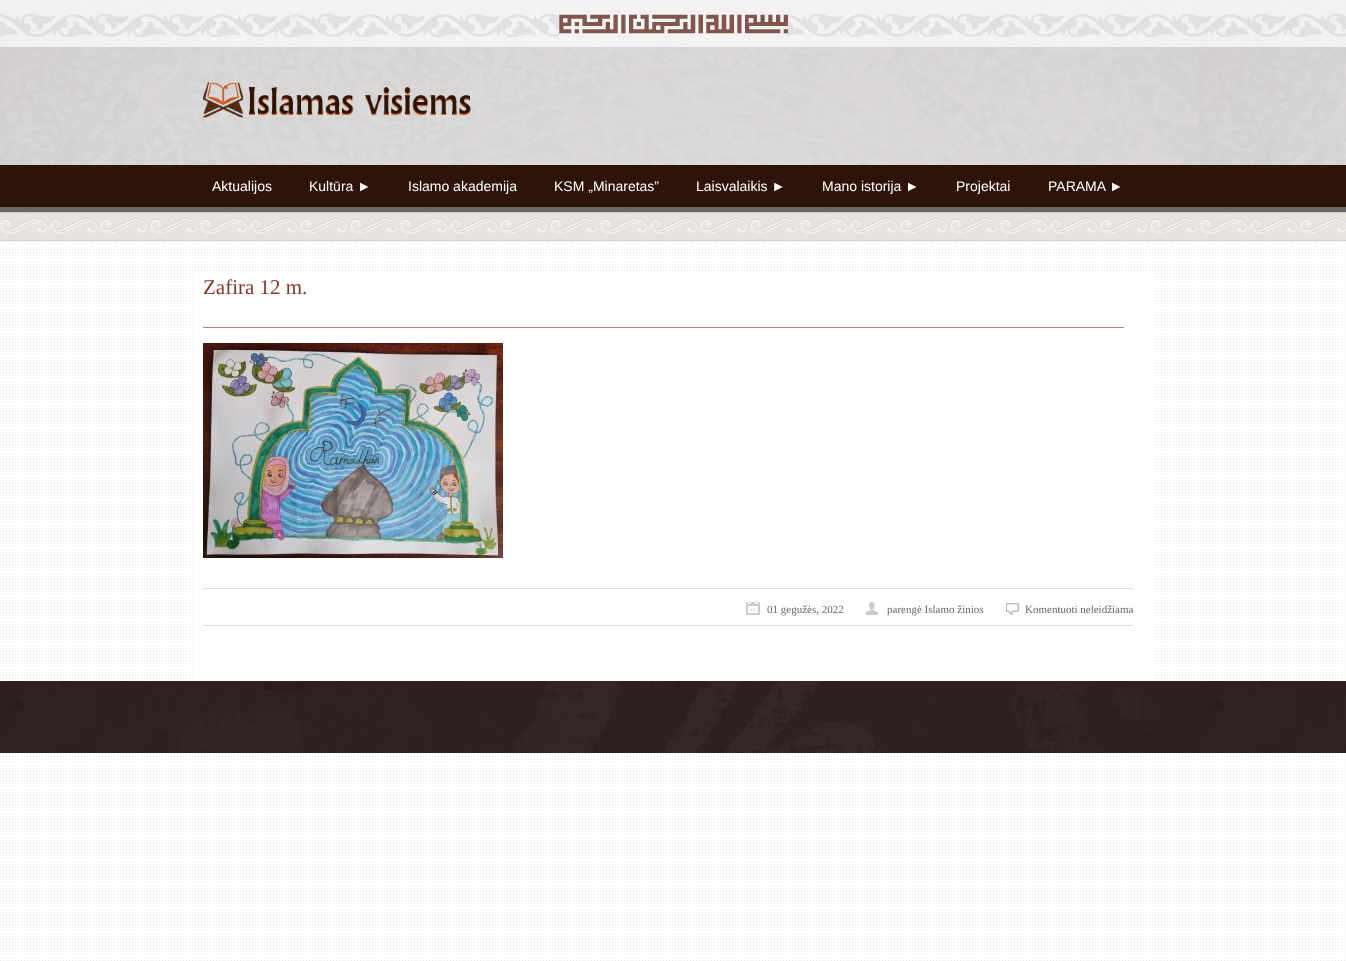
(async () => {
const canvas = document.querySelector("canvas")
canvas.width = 1346
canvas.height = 961
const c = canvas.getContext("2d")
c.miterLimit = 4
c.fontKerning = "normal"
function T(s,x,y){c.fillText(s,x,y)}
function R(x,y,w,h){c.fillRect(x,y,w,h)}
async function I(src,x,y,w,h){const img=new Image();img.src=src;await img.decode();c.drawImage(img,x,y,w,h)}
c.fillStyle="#fff"
R(0,0,1346,961)
await I("1.png",0,242,1345,719)
await I("2.png",0,0,1346,165)
c.fillStyle="#fffffff0"
R(0,0,1346,47)
await I("3.png",0,14,559,23)
await I("4.png",559,14,229,20)
await I("5.png",787,14,559,23)
c.fillStyle="#ffffffcc"
R(0,47,1346,118)
await I("6.png",203,82,268,36)
c.fillStyle="#2e1308"
R(0,165,1346,42)
c.fillStyle="#666"
R(0,207,1346,5)
c.font="14px Liberation Sans"
c.fillStyle="#fff"
T("Aktualijos",212,191)
T("Kultūra ►",309,191)
T("Islamo akademija",408,191)
T("KSM „Minaretas”",554,191)
T("Laisvalaikis ►",696,191)
T("Mano istorija ►",822,191)
T("Projektai",956,191)
T("PARAMA ►",1048,191)
await I("7.png",0,212,1346,30)
R(195,273,958,406)
c.fillStyle="#af857e"
R(203,327,921,1)
c.font="21px Liberation Serif"
c.fillStyle="#83372a"
T("Zafira 12 m.",203,294)
await I("8.png",203,343,300,215)
c.fillStyle="#ddd"
R(203,588,930,1)
R(203,625,930,1)
await I("9.png",746,601,14,14)
c.font="11px Liberation Serif"
c.fillStyle="#666"
T("01 gegužės, 2022",767,613)
await I("10.png",865,602,13,13)
T("parengė Islamo žinios",887,613)
await I("11.png",1006,603,13,12)
T("Komentuoti neleidžiama",1025,613)
await I("12.png",0,681,1346,72)
})()
